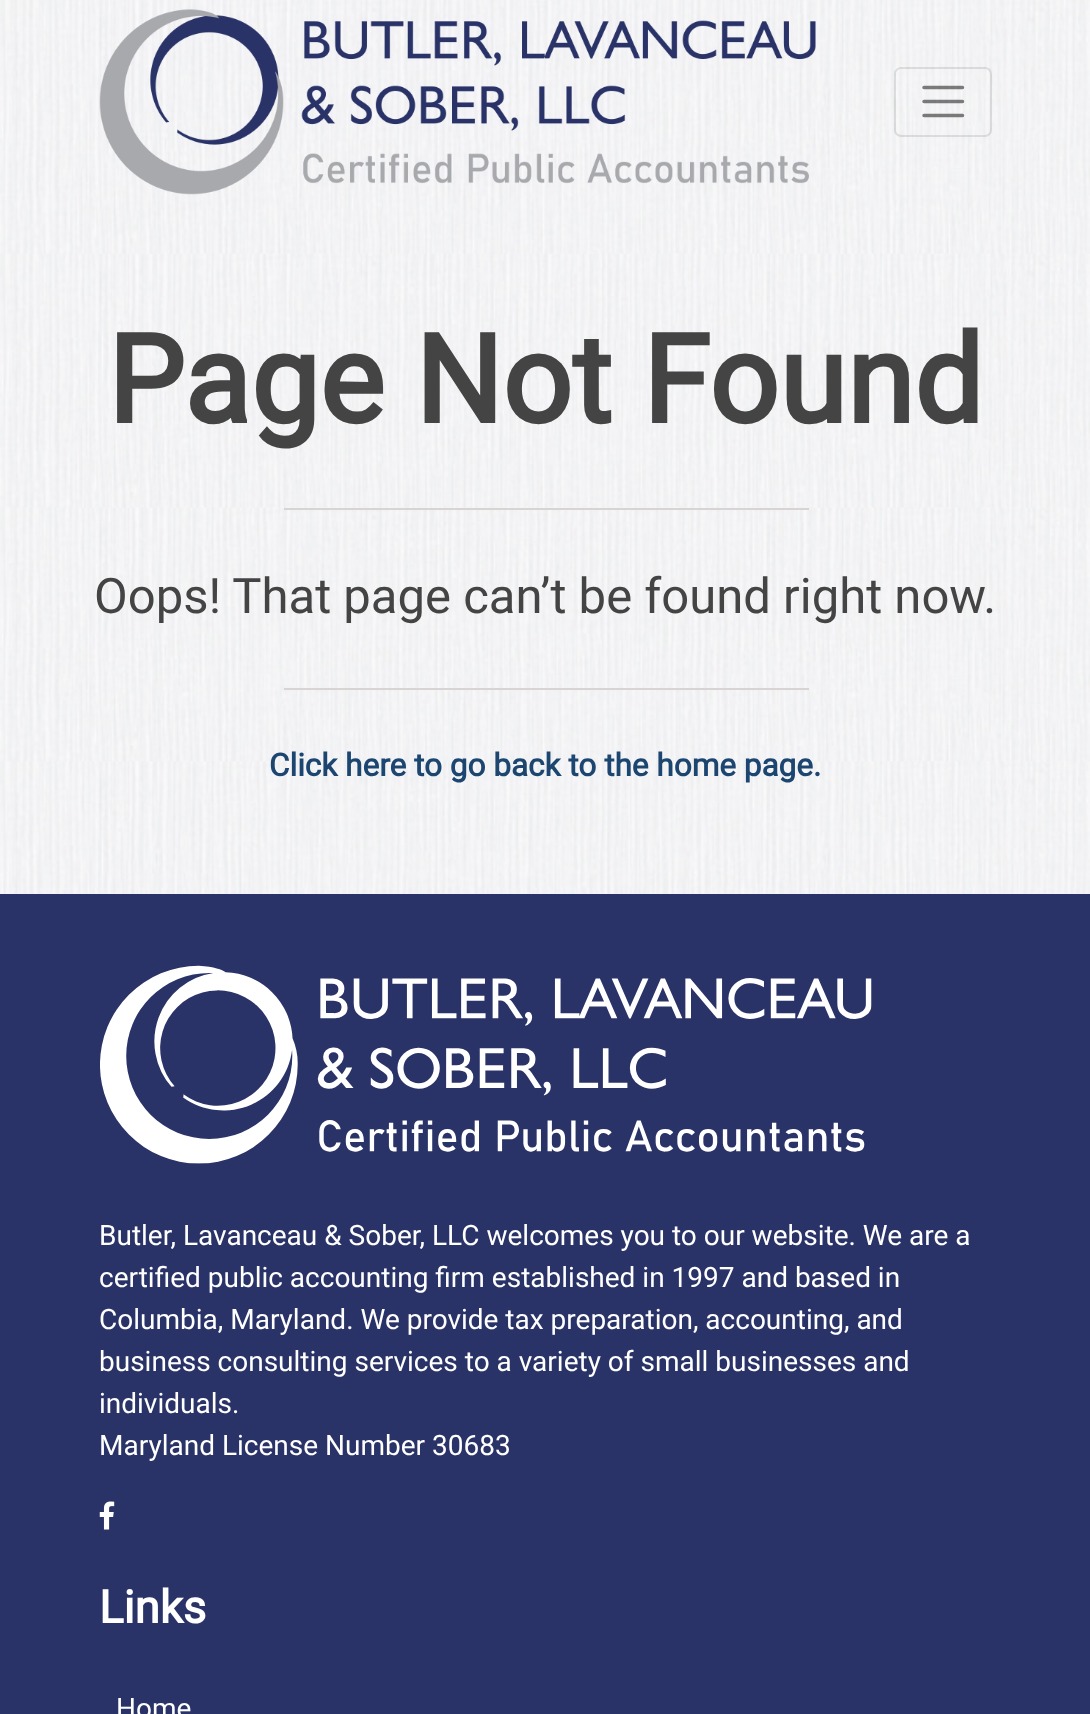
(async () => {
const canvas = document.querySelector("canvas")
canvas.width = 1090
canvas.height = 1714
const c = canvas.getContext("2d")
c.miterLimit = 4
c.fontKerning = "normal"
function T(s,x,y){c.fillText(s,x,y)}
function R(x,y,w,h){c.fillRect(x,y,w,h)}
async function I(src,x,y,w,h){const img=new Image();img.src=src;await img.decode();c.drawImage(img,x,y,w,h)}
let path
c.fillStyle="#fff"
R(0,0,1090,1714)
await I("1.png",0,0,1090,894)
await I("2.png",99,9,717,186)
c.beginPath()
c.roundRect(895,68,96,68,6)
c.strokeStyle="#0000001a"
c.lineWidth=2
c.stroke()
path = new Path2D("M924 87.5h38.5m-38.5 14h38.5m-38.5 14h38.5")
c.strokeStyle="#00000080"
c.lineWidth=3.5
c.lineCap="round"
c.stroke(path)
c.font="bold 122.5px Roboto"
c.fillStyle="#444"
T("Page Not Found",107,423)
c.fillStyle="#d8d4d4"
R(284,508,525,2)
c.font="49px Roboto"
c.fillStyle="#444"
T("Oops! That page can’t be found right now.",94,613)
c.fillStyle="#d8d4d4"
R(284,688,525,2)
c.font="bold 31.5px Roboto"
c.fillStyle="#1c4670"
T("Click here to go back to the home page.",269,776)
c.fillStyle="#2a3368"
R(0,894,1090,820)
await I("3.png",100,965,772,199)
c.font="28px Roboto"
c.fillStyle="#fff"
T("Butler, Lavanceau & Sober, LLC welcomes you to our website. We are a",99,1245)
T("certified public accounting firm established in 1997 and based in",99,1287)
T("Columbia, Maryland. We provide tax preparation, accounting, and",99,1329)
T("business consulting services to a variety of small businesses and",99,1371)
T("individuals.",99,1413)
T("Maryland License Number 30683",99,1455)
await I("4.png",99,1501,16,29)
c.font="bold 45.5px Roboto"
T("Links",99,1623)
c.font="28px Roboto"
T("Home",116,1718)
})()
